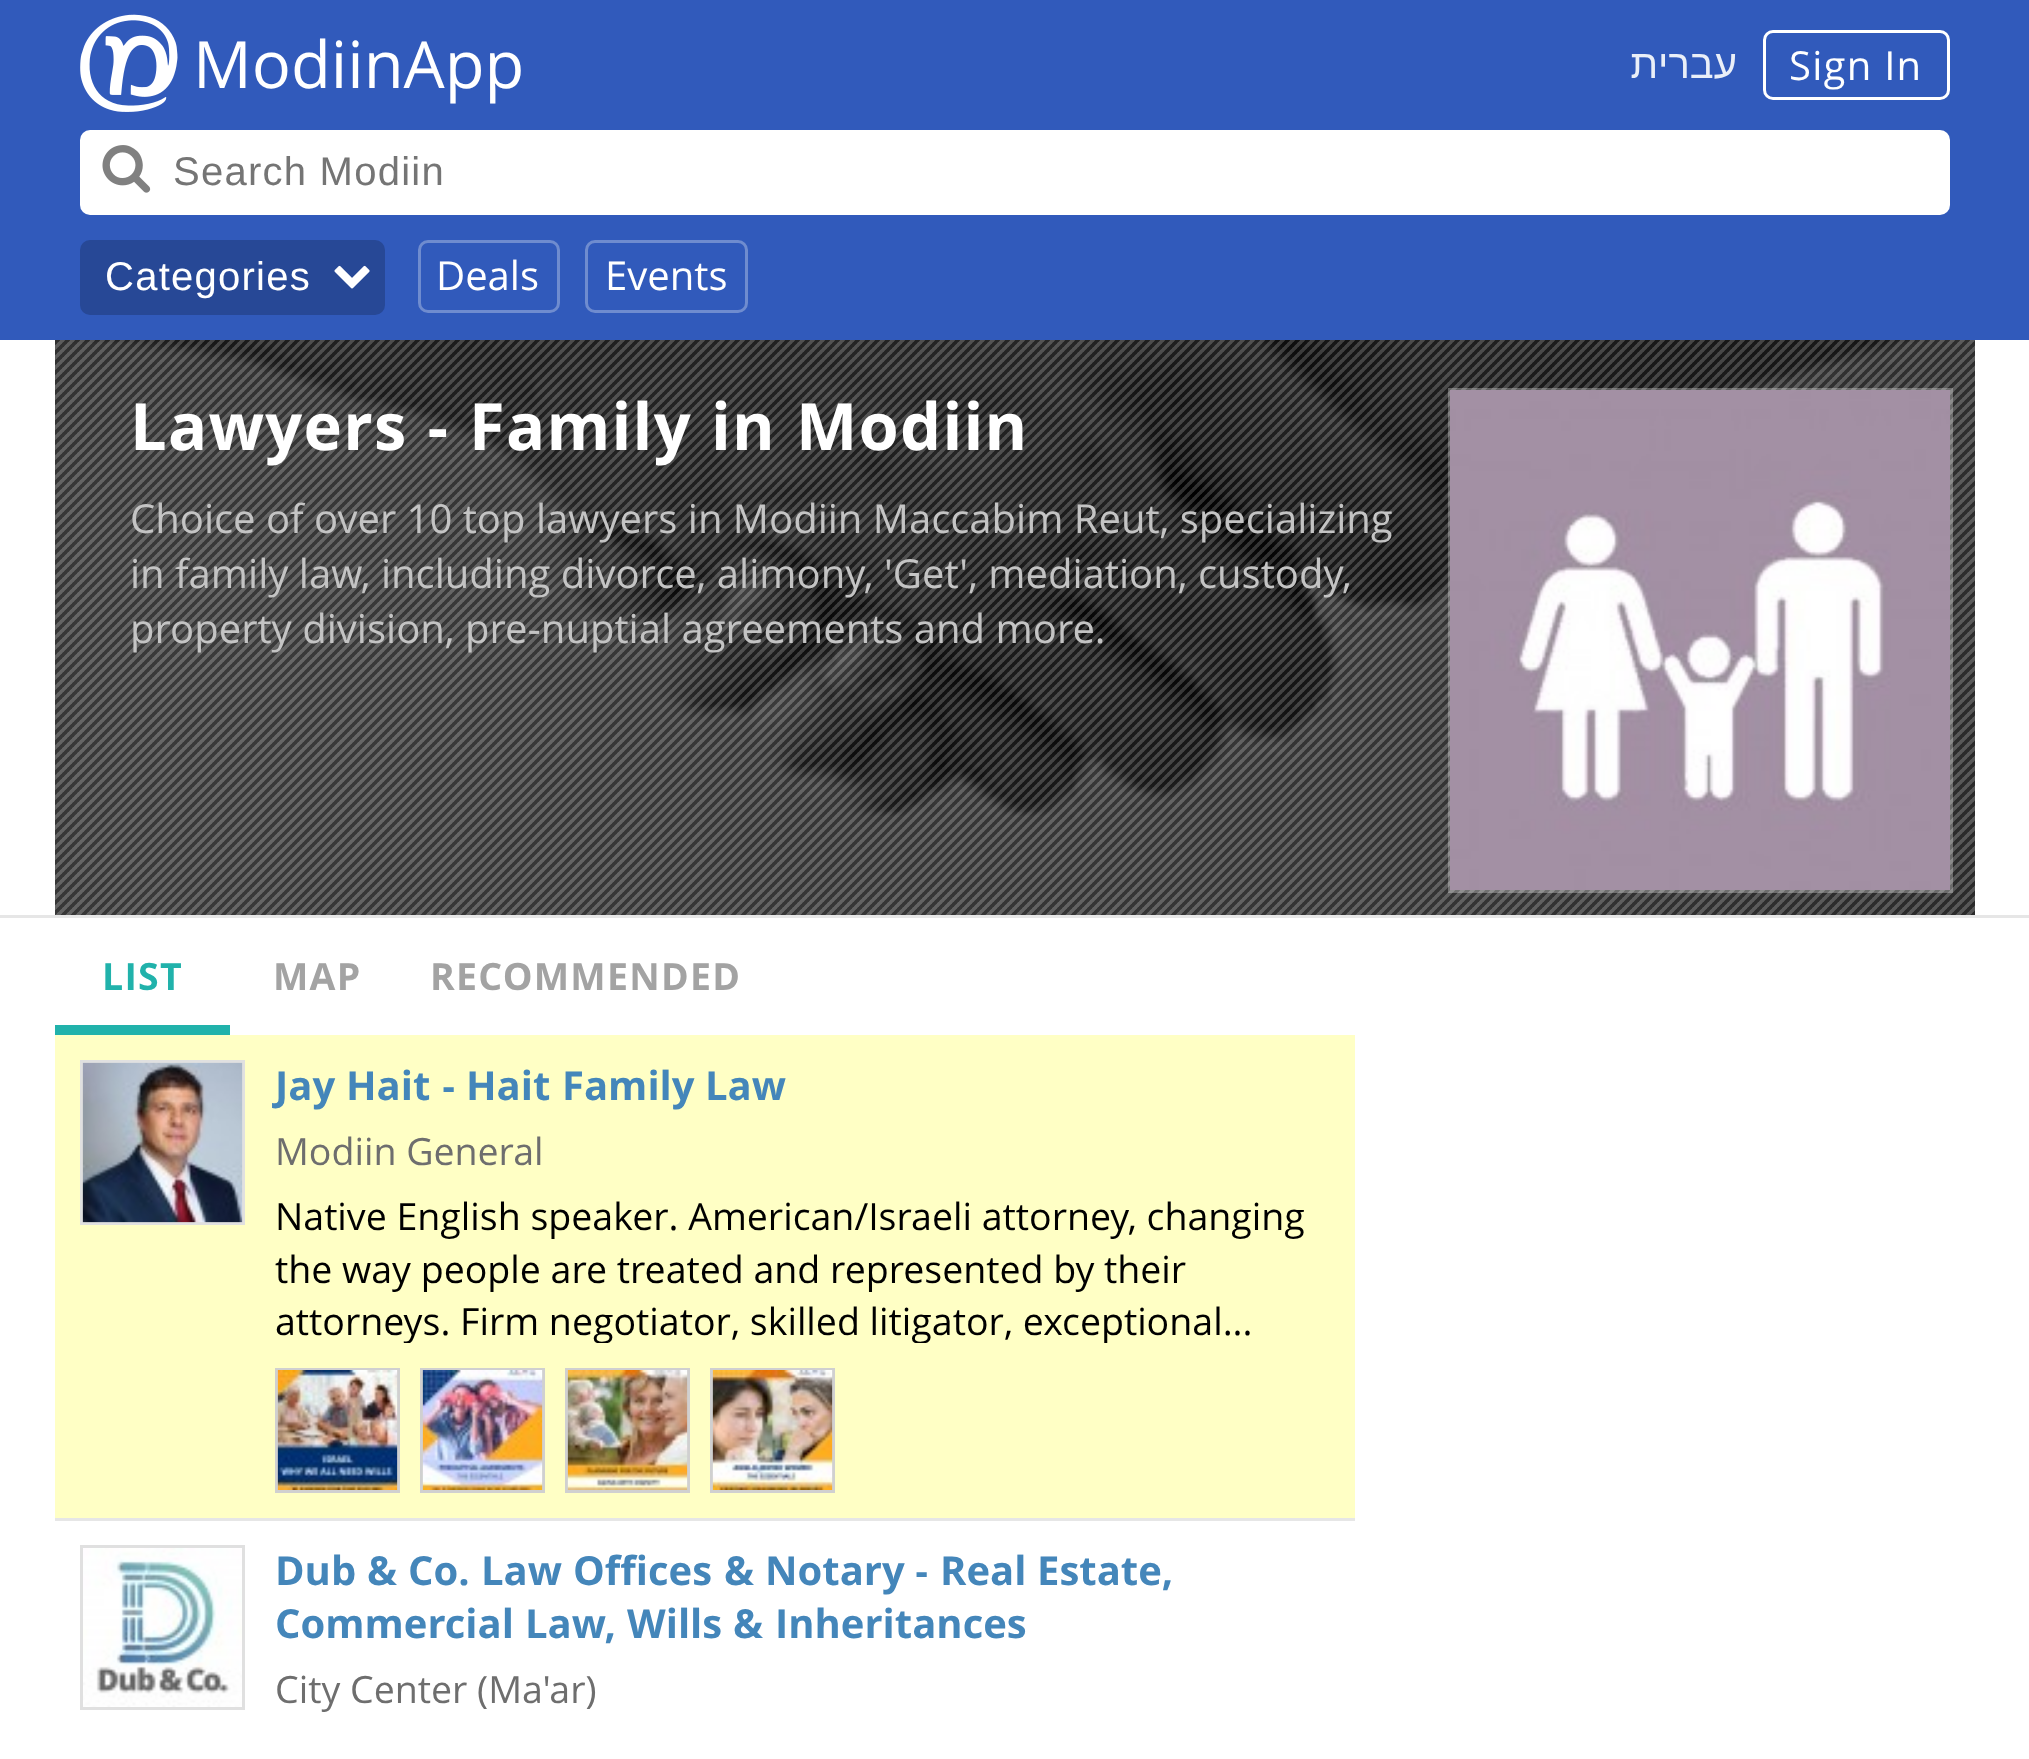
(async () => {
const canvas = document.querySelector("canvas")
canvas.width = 2029
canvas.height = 1759
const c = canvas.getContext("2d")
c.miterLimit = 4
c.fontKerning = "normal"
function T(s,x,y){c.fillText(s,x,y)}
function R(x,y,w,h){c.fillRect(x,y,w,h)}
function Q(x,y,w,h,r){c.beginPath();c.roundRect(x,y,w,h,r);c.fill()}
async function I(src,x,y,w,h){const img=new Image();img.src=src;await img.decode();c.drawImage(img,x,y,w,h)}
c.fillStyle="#fff"
R(0,0,2029,1759)
c.fillStyle="#315abb"
R(0,0,2029,340)
await I("1.png",80,14,98,98)
c.font="65px Arimo"
c.fillStyle="#fff"
T("ModiinApp",193,88)
c.direction="rtl"
c.font="40px Arimo"
c.fillStyle="#eaeff8"
T("עברית",1737,78)
c.beginPath()
c.roundRect(1764.5,31.5,184,67,8.5)
c.strokeStyle="#fff"
c.lineWidth=3
c.stroke()
c.letterSpacing="1.25px"
c.direction="ltr"
c.fillStyle="#fff"
T("Sign In",1789,80)
Q(80,130,1870,85,10)
await I("2.png",102,145,49,48)
c.font="40px Liberation Sans"
c.fillStyle="#757575"
T("Search Modiin",173,185)
c.fillStyle="#274896"
Q(80,240,305,75,10)
c.fillStyle="#fff"
T("Categories",105,290)
await I("3.png",334,265,36,24)
c.beginPath()
c.roundRect(419.5,241.5,139,70,8.5)
c.strokeStyle="#6f8ccf"
c.stroke()
c.letterSpacing="0px"
c.font="40px Arimo"
T("Deals",436,290)
c.beginPath()
c.roundRect(586.5,241.5,160,70,8.5)
c.stroke()
T("Events",605,290)
c.fillStyle="#e6e6e6"
R(0,915,2029,3)
await I("4.png",55,340,1920,575)
await I("5.png",55,340,1920,575)
c.letterSpacing="1.25px"
c.font="bold 65px Arimo"
c.fillStyle="#fff"
T("Lawyers",130,450)
c.font="bold 65px Liberation Sans"
T("-",427,450)
c.font="bold 65px Arimo"
T("Family",469,450)
T("in",711,450)
T("Modiin",796,450)
c.strokeStyle="#ffffff4d"
c.strokeRect(1449.5,389.5,502,502)
await I("6.png",1450,390,500,500)
c.letterSpacing="0px"
c.font="40px Arimo"
c.fillStyle="#c4c4c4"
T("Choice of over 10 top lawyers in Modiin Maccabim Reut, specializing",130,533)
T("in family law, including divorce, alimony, 'Get', mediation, custody,",130,588)
T("property division, pre-nuptial agreements and more.",130,643)
c.fillStyle="#21b2ab"
R(55,1025,175,10)
c.letterSpacing="1.25px"
c.font="bold 37.5px Arimo"
T("LIST",102,990)
c.fillStyle="#a3a3a3"
T("MAP",273,990)
T("RECOMMENDED",430,990)
c.fillStyle="#ffffc5"
R(55,1035,1300,483)
c.strokeStyle="#e0e0e0"
c.strokeRect(81.5,1061.5,162,162)
await I("7.png",82,1062,161,161)
c.letterSpacing="0px"
c.font="bold 40px Arimo"
c.fillStyle="#4486ba"
T("Jay",275,1100)
T("Hait",346,1100)
c.font="bold 40px Liberation Sans"
T("-",442,1100)
c.font="bold 40px Arimo"
T("Hait",466,1100)
T("Family",562,1100)
T("Law",705,1100)
c.font="37.5px Arimo"
c.fillStyle="#6e6e6e"
T("Modiin General",275,1165)
c.fillStyle="#000"
T("Native English speaker. American/Israeli attorney, changing",275,1230)
T("the way people are treated and represented by their",275,1283)
c.save()
c.beginPath()
c.rect(275,1190,1060,153)
c.clip()
T("attorneys. Firm negotiator, skilled litigator, exceptional...",275,1335)
c.restore()
c.strokeStyle="#d0d0d0"
c.strokeRect(276.5,1369.5,122,122)
await I("8.png",277,1370,121,120)
c.strokeRect(421.5,1369.5,122,122)
await I("9.png",422,1370,121,120)
c.strokeRect(566.5,1369.5,122,122)
await I("10.png",567,1370,121,120)
c.strokeRect(711.5,1369.5,122,122)
await I("11.png",712,1370,121,120)
c.fillStyle="#e6e6e6"
R(55,1518,1300,3)
c.strokeStyle="#e0e0e0"
c.strokeRect(81.5,1546.5,162,162)
await I("12.png",83,1548,159,159)
c.font="bold 40px Arimo"
c.fillStyle="#4486ba"
T("Dub",275,1585)
T("&",367,1585)
T("Co.",408,1585)
T("Law",481,1585)
T("Offices",573,1585)
T("&",724,1585)
T("Notary",765,1585)
c.font="bold 40px Liberation Sans"
T("-",915,1585)
c.font="bold 40px Arimo"
T("Real",940,1585)
T("Estate,",1037,1585)
T("Commercial",275,1638)
T("Law,",525,1638)
T("Wills",627,1638)
T("&",733,1638)
T("Inheritances",775,1638)
c.font="37.5px Arimo"
c.fillStyle="#6e6e6e"
T("City Center (Ma'ar)",275,1703)
})()
